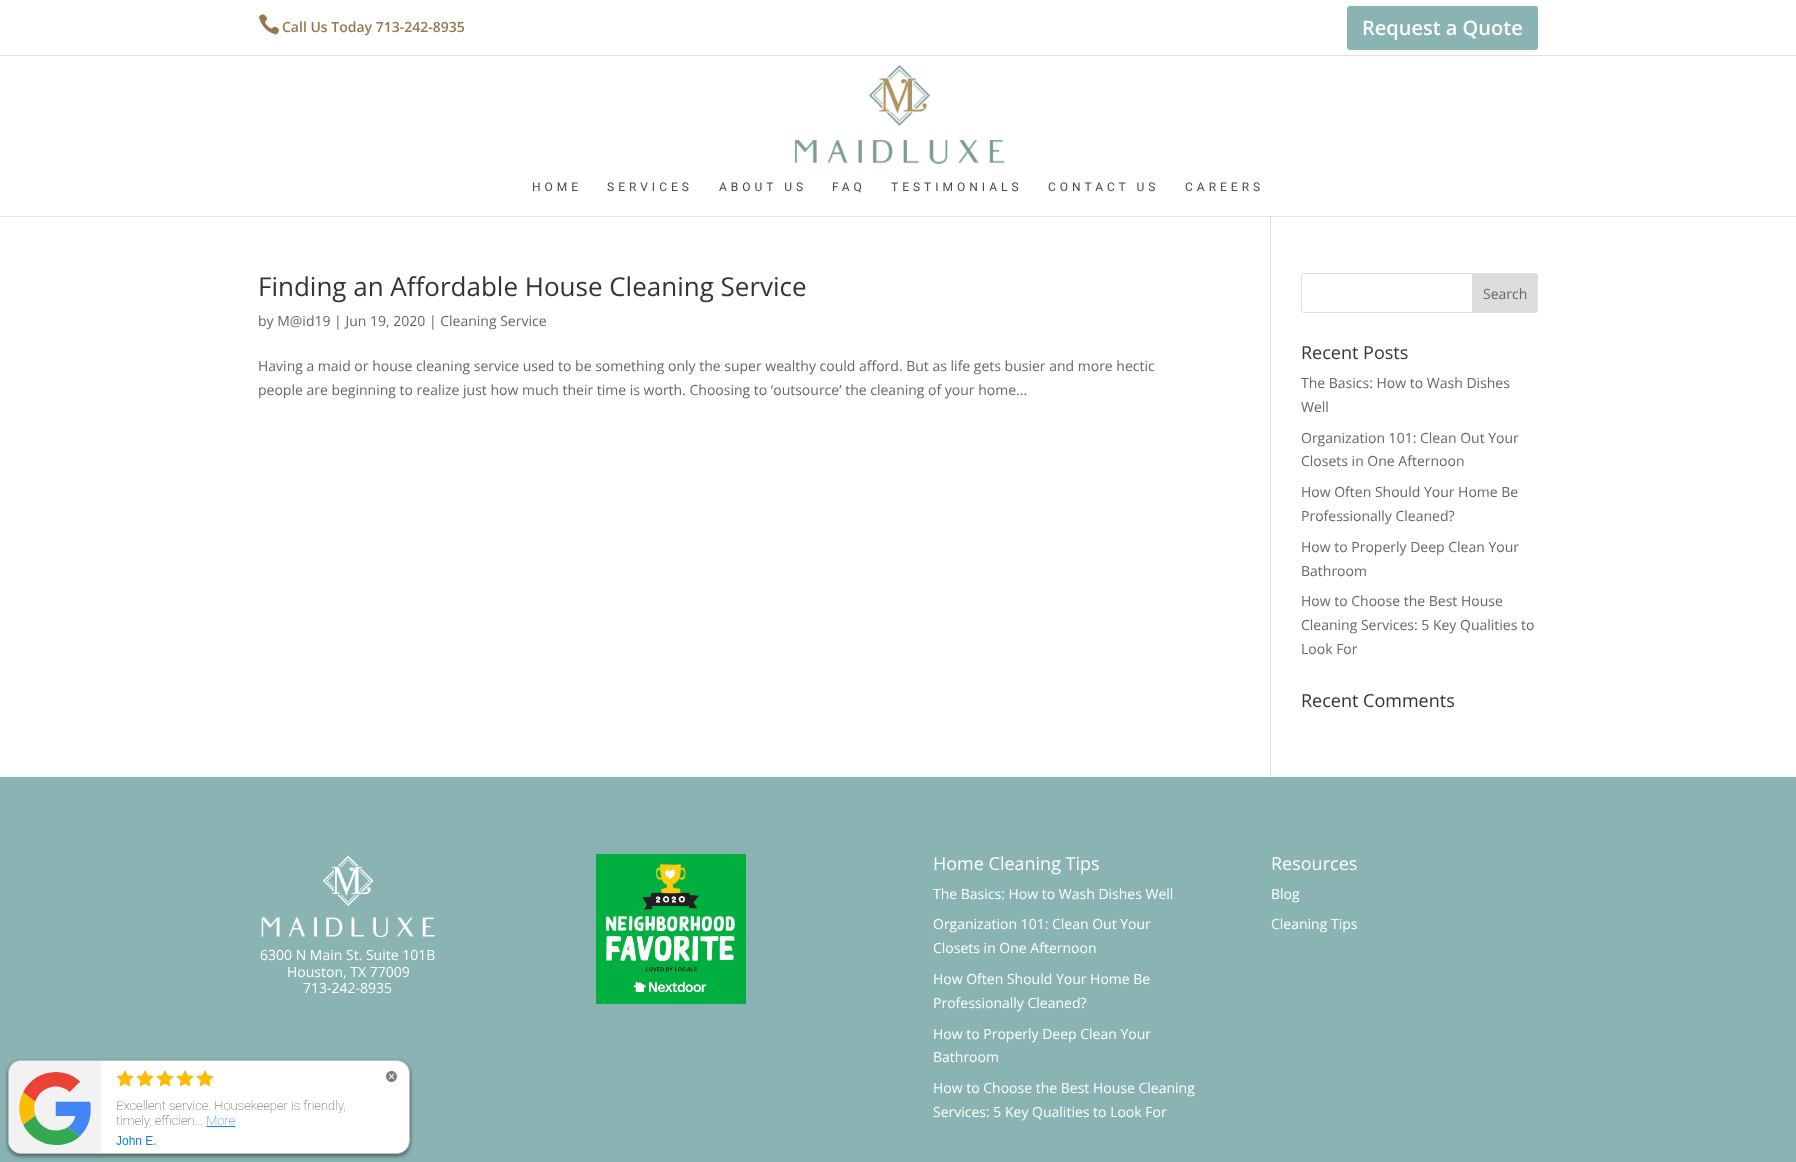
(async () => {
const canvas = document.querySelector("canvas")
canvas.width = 1796
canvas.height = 1162
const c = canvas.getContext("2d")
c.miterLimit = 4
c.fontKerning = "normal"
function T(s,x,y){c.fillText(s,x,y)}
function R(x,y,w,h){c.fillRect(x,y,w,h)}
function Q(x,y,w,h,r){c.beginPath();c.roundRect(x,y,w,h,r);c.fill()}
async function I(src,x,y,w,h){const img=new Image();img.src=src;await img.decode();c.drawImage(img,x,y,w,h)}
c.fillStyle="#fff"
R(0,0,1796,1162)
c.fillStyle="#e6e6e6"
R(0,216,1796,1)
c.fillStyle="#e1e1e1"
R(0,55,1796,1)
await I("1.png",258,14,22,21)
c.font="600 14px Open Sans"
c.fillStyle="#96784e"
T("Call Us Today 713-242-8935",282,32)
c.fillStyle="#8ab4b3"
Q(1347,6,191,44,3)
c.font="600 20px Open Sans"
c.fillStyle="#fff"
T("Request a Quote",1362,35)
c.fillStyle="#e2e2e2"
R(1270,215,1,562)
c.fillStyle="#fff"
R(1270,215,1,1)
await I("2.png",795,65,209,99)
c.letterSpacing="4px"
c.font="12px Roboto"
c.fillStyle="#474747"
T("HOME",532,191)
T("SERVICES",607,191)
T("ABOUT US",719,191)
T("FAQ",832,191)
T("TESTIMONIALS",891,191)
T("CONTACT US",1048,191)
T("CAREERS",1185,191)
c.fillStyle="#cbcbcb"
R(1270,216,1,1)
c.letterSpacing="0px"
c.font="26px Open Sans"
c.fillStyle="#333"
T("Finding an Affordable House Cleaning Service",258,296)
c.font="14px Open Sans"
c.fillStyle="#666"
T("by M@id19 | Jun 19, 2020 | Cleaning Service",258,326)
T("Having a maid or house cleaning service used to be something only the super wealthy could afford. But as life gets busier and more hectic",258,371)
T("people are beginning to realize just how much their time is worth. Choosing to ‘outsource’ the cleaning of your home...",258,395)
c.beginPath()
c.roundRect(1301.5,273.5,236,39,2.5)
c.strokeStyle="#ddd"
c.stroke()
c.fillStyle="#ddd"
c.beginPath()
c.roundRect(1472.5,273.5,65,39,[0,2.5,2.5,0])
c.fill()
c.stroke()
c.fillStyle="#666"
T("Search",1483,299)
c.font="18px Open Sans"
c.fillStyle="#333"
T("Recent Posts",1301,359)
c.font="14px Open Sans"
c.fillStyle="#666"
T("The Basics: How to Wash Dishes",1301,388)
T("Well",1301,412)
T("Organization 101: Clean Out Your",1301,443)
T("Closets in One Afternoon",1301,466)
T("How Often Should Your Home Be",1301,497)
T("Professionally Cleaned?",1301,521)
T("How to Properly Deep Clean Your",1301,552)
T("Bathroom",1301,576)
T("How to Choose the Best House",1301,606)
T("Cleaning Services: 5 Key Qualities to",1301,630)
T("Look For",1301,654)
c.font="18px Open Sans"
c.fillStyle="#333"
T("Recent Comments",1301,707)
c.fillStyle="#8ab4b3"
R(0,777,1796,385)
await I("3.png",596,854,150,150)
c.fillStyle="#fff"
T("Home Cleaning Tips",933,870)
c.font="14px Open Sans"
T("The Basics: How to Wash Dishes Well",933,899)
T("Organization 101: Clean Out Your",933,929)
T("Closets in One Afternoon",933,953)
T("How Often Should Your Home Be",933,984)
T("Professionally Cleaned?",933,1008)
T("How to Properly Deep Clean Your",933,1039)
T("Bathroom",933,1062)
T("How to Choose the Best House Cleaning",933,1093)
T("Services: 5 Key Qualities to Look For",933,1117)
c.font="18px Open Sans"
T("Resources",1271,870)
c.font="14px Open Sans"
T("Blog",1271,899)
T("Cleaning Tips",1271,929)
await I("4.png",261,855,174,83)
T("6300 N Main St. Suite 101B",260,960)
T("Houston, TX 77009",287,977)
T("713-242-8935",303,993)
await I("5.png",4,1058,410,102)
})()
